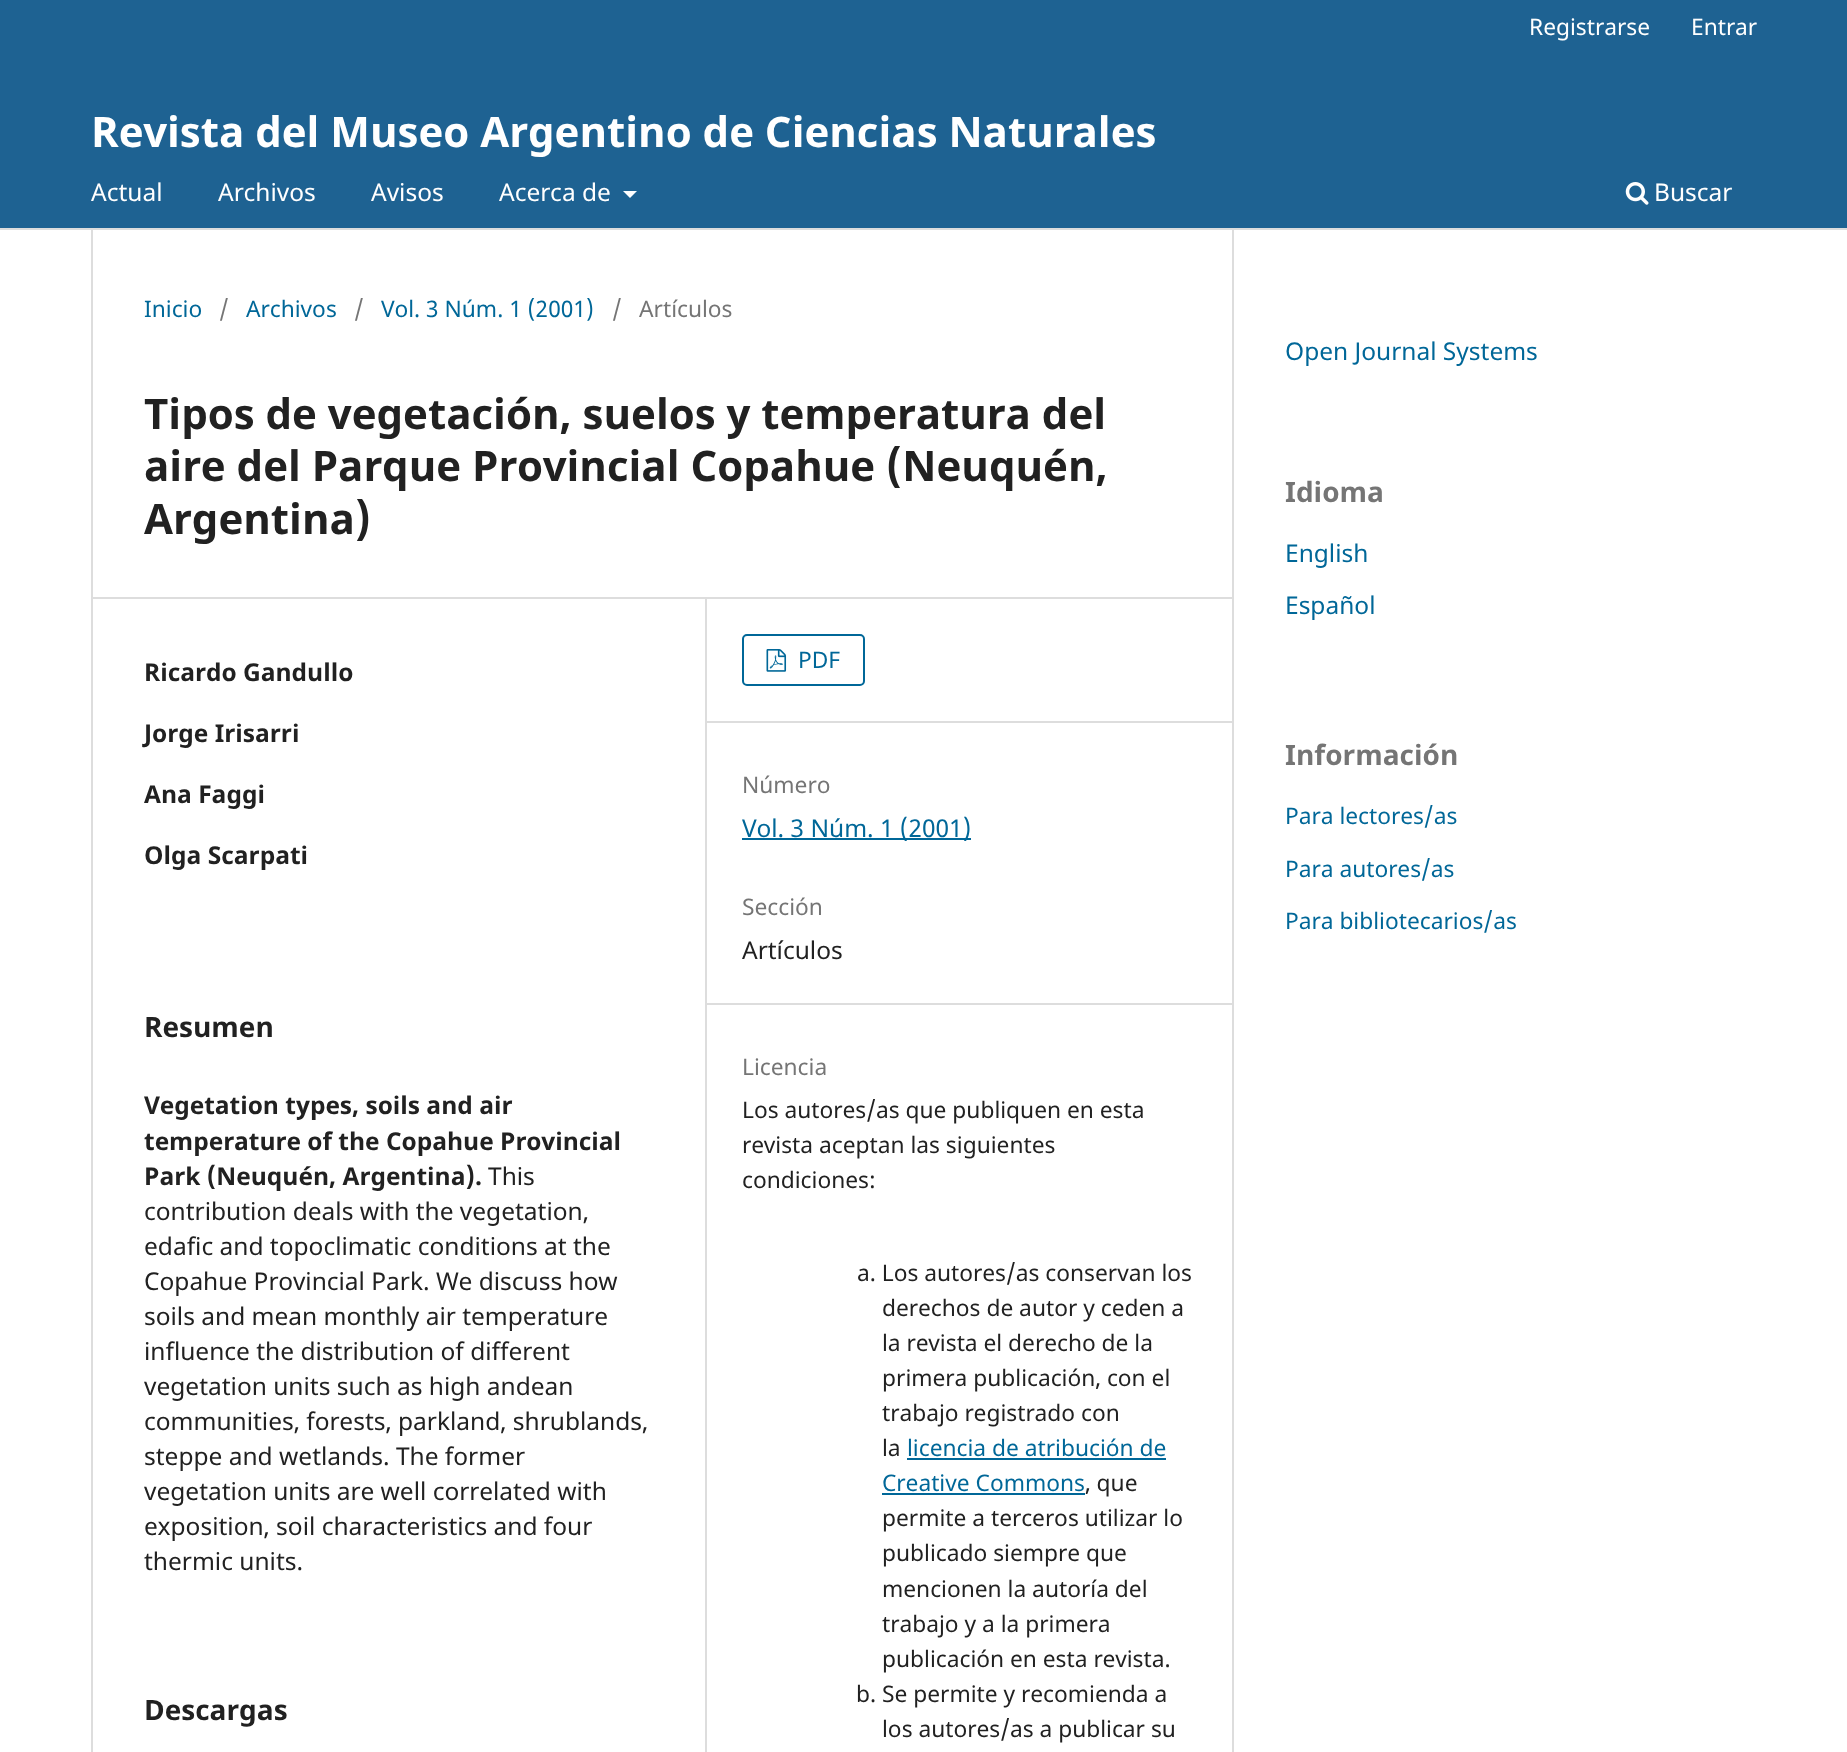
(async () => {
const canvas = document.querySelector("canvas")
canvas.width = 1847
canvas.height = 1752
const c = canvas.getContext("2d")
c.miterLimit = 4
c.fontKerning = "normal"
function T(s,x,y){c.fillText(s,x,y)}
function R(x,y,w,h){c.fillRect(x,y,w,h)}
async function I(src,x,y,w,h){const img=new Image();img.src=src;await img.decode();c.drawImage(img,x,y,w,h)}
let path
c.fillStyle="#fff"
R(0,0,1847,1752)
c.fillStyle="#1e6292"
R(0,0,1847,228)
c.fillStyle="#ddd"
R(0,228,1847,2)
c.font="22.75px Noto Sans"
c.fillStyle="#fff"
T("Registrarse",1529,35)
T("Entrar",1691,35)
c.font="24.5px Noto Sans"
T("Actual",91,201)
T("Archivos",218,201)
T("Avisos",371,201)
T("Acerca de",499,201)
path = new Path2D("M623 191h14l-7 7z")
c.fill(path)
await I("1.png",1625,182,24,23)
T("Buscar",1654,201)
c.font="bold 42px Noto Sans"
T("Revista del Museo Argentino de Ciencias Naturales",91,147)
c.fillStyle="#ddd"
R(91,597,1141,2)
R(91,229,2,1523)
c.font="22.75px Noto Sans"
c.fillStyle="#006798"
T("Inicio",144,317)
c.fillStyle="#757575"
T("/",219,317)
c.fillStyle="#006798"
T("Archivos",246,317)
c.fillStyle="#757575"
T("/",354,317)
c.fillStyle="#006798"
T("Vol. 3 Núm. 1 (2001)",381,317)
c.fillStyle="#757575"
T("/",612,317)
T("Artículos",639,317)
c.font="bold 42px Noto Sans"
c.fillStyle="#212121"
T("Tipos de vegetación, suelos y temperatura del",144,429)
T("aire del Parque Provincial Copahue (Neuquén,",144,481)
T("Argentina)",144,534)
c.fillStyle="#ddd"
R(705,599,2,1153)
c.font="bold 24.5px Noto Sans"
c.fillStyle="#212121"
T("Ricardo Gandullo",144,681)
T("Jorge Irisarri",144,742)
T("Ana Faggi",144,803)
T("Olga Scarpati",144,864)
c.font="bold 28px Noto Sans"
T("Resumen",144,1037)
c.font="bold 24.5px Noto Sans"
T("Vegetation types, soils and air",144,1114)
T("temperature of the Copahue Provincial",144,1150)
T("Park (Neuquén, Argentina).",144,1185)
c.font="24.5px Noto Sans"
T("This",488,1185)
T("contribution deals with the vegetation,",144,1220)
T("edafic and topoclimatic conditions at the",144,1255)
T("Copahue Provincial Park. We discuss how",144,1290)
T("soils and mean monthly air temperature",144,1325)
T("influence the distribution of different",144,1360)
T("vegetation units such as high andean",144,1395)
T("communities, forests, parkland, shrublands,",144,1430)
T("steppe and wetlands. The former",144,1465)
T("vegetation units are well correlated with",144,1500)
T("exposition, soil characteristics and four",144,1535)
T("thermic units.",144,1570)
c.font="bold 28px Noto Sans"
T("Descargas",144,1720)
c.fillStyle="#ddd"
R(707,721,525,2)
c.beginPath()
c.roundRect(743,635,121,50,4)
c.strokeStyle="#006798"
c.lineWidth=2
c.stroke()
await I("2.png",766,649,21,23)
c.font="22.75px Noto Sans"
c.fillStyle="#006798"
T("PDF",798,668)
c.fillStyle="#ddd"
R(707,1003,525,2)
c.fillStyle="#757575"
T("Número",742,793)
c.fillStyle="#006798"
R(742,838,229,2)
c.font="24.5px Noto Sans"
T("Vol. 3 Núm. 1 (2001)",742,837)
c.font="22.75px Noto Sans"
c.fillStyle="#757575"
T("Sección",742,915)
c.font="24.5px Noto Sans"
c.fillStyle="#212121"
T("Artículos",742,959)
c.font="22.75px Noto Sans"
c.fillStyle="#757575"
T("Licencia",742,1075)
c.fillStyle="#212121"
T("Los autores/as que publiquen en esta",742,1118)
T("revista aceptan las siguientes",742,1153)
T("condiciones:",742,1188)
T("a. Los autores/as conservan los",857,1281)
T("derechos de autor y ceden a",882,1316)
T("la revista el derecho de la",882,1351)
T("primera publicación, con el",882,1386)
T("trabajo registrado con",882,1421)
T("la",882,1456)
c.fillStyle="#006798"
T("licencia de atribución de",907,1456)
R(907,1458,259,2)
T("Creative Commons",882,1491)
R(882,1493,203,2)
c.fillStyle="#212121"
T(", que",1085,1491)
T("permite a terceros utilizar lo",882,1526)
T("publicado siempre que",882,1561)
T("mencionen la autoría del",882,1597)
T("trabajo y a la primera",882,1632)
T("publicación en esta revista.",882,1667)
T("b. Se permite y recomienda a",856,1702)
T("los autores/as a publicar su",882,1737)
c.fillStyle="#ddd"
R(1232,229,2,1523)
c.font="24.5px Noto Sans"
c.fillStyle="#006798"
T("Open Journal Systems",1285,360)
c.font="bold 28px Noto Sans"
c.fillStyle="#757575"
T("Idioma",1285,502)
c.font="24.5px Noto Sans"
c.fillStyle="#006798"
T("English",1285,562)
T("Español",1285,614)
c.font="bold 28px Noto Sans"
c.fillStyle="#757575"
T("Información",1285,765)
c.font="22.75px Noto Sans"
c.fillStyle="#006798"
T("Para lectores/as",1285,824)
T("Para autores/as",1285,877)
T("Para bibliotecarios/as",1285,929)
})()
